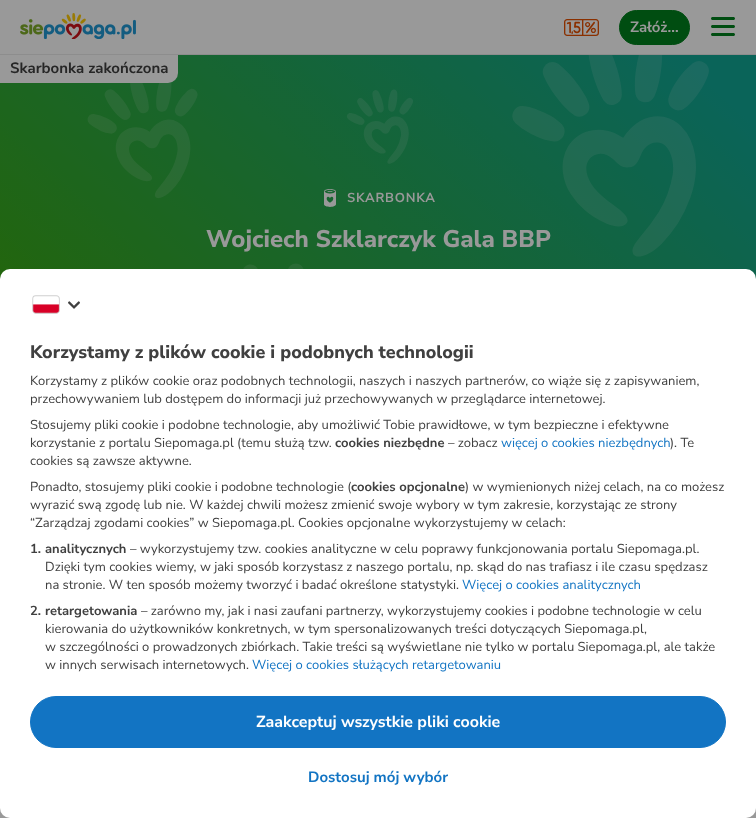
(async () => {
const canvas = document.querySelector("canvas")
canvas.width = 756
canvas.height = 818
const c = canvas.getContext("2d")
c.miterLimit = 4
c.fontKerning = "normal"
function T(s,x,y){c.fillText(s,x,y)}
function R(x,y,w,h){c.fillRect(x,y,w,h)}
function Q(x,y,w,h,r){c.beginPath();c.roundRect(x,y,w,h,r);c.fill()}
async function I(src,x,y,w,h){const img=new Image();img.src=src;await img.decode();c.drawImage(img,x,y,w,h)}
c.fillStyle="#fff"
R(0,0,756,818)
c.fillStyle="#999"
R(0,0,756,54)
c.fillStyle="#8d8d8d"
R(0,54,756,1)
await I("1.png",20,13,116,26)
await I("2.png",564,19,35,17)
c.fillStyle="#004d11"
c.beginPath()
c.roundRect(619.5,10.5,70,34,17)
c.fill()
c.strokeStyle="#004d11"
c.stroke()
c.font="bold 15px Nunito Sans"
c.fillStyle="#999"
T("Załóż…",630,32)
await I("3.png",711,17,24,19)
await I("4.png",0,55,756,224)
c.beginPath()
c.roundRect(0,55,178,28,[0,0,10,0])
c.fill()
c.fillStyle="#262626"
T("Skarbonka zakończona",10,73)
await I("5.png",324,189,12,18)
c.letterSpacing="0.75px"
c.font="bold 13px Nunito Sans"
c.fillStyle="#999"
T("SKARBONKA",347,202)
c.letterSpacing="0px"
c.font="800 24px Nunito Sans"
T("Wojciech Szklarczyk Gala BBP",206,247)
R(0,808,756,10)
c.fillStyle="#fff"
Q(0,269,756,549,10)
await I("6.png",32,295,28,19)
await I("7.png",68,301,12,8)
c.font="800 18px Nunito Sans"
c.fillStyle="#404040"
T("Korzystamy z plików cookie i podobnych technologii",30,358)
c.font="13px Nunito Sans"
T("Korzystamy z plików cookie oraz podobnych technologii, naszych i naszych partnerów, co wiąże się z zapisywaniem,",30,385)
T("przechowywaniem lub dostępem do informacji już przechowywanych w przeglądarce internetowej.",30,403)
T("Stosujemy pliki cookie i podobne technologie, aby umożliwić Tobie prawidłowe, w tym bezpieczne i efektywne",30,429)
T("korzystanie z portalu Siepomaga.pl (temu służą tzw.",30,447)
c.font="bold 13px Nunito Sans"
T("cookies niezbędne",335,447)
c.font="13px Nunito Sans"
T("– zobacz",448,447)
c.fillStyle="#1274c3"
T("więcej o cookies niezbędnych",501,447)
c.fillStyle="#404040"
T("). Te",670,447)
T("cookies są zawsze aktywne.",30,465)
T("Ponadto, stosujemy pliki cookie i podobne technologie (",30,491)
c.font="bold 13px Nunito Sans"
T("cookies opcjonalne",351,491)
c.font="13px Nunito Sans"
T(") w wymienionych niżej celach, na co możesz",465,491)
T("wyrazić swą zgodę lub nie. W każdej chwili możesz zmienić swoje wybory w tym zakresie, korzystając ze strony",30,509)
T("“Zarządzaj zgodami cookies” w Siepomaga.pl. Cookies opcjonalne wykorzystujemy w celach:",30,527)
c.font="bold 13px Nunito Sans"
T("1.",30,553)
T("analitycznych",45,553)
c.font="13px Nunito Sans"
T("– wykorzystujemy tzw. cookies analityczne w celu poprawy funkcjonowania portalu Siepomaga.pl.",130,553)
T("Dzięki tym cookies wiemy, w jaki sposób korzystasz z naszego portalu, np. skąd do nas trafiasz i ile czasu spędzasz",45,571)
T("na stronie. W ten sposób możemy tworzyć i badać określone statystyki.",45,589)
c.fillStyle="#1274c3"
T("Więcej o cookies analitycznych",462,589)
c.font="bold 13px Nunito Sans"
c.fillStyle="#404040"
T("2.",30,615)
T("retargetowania",45,615)
c.font="13px Nunito Sans"
T("– zarówno my, jak i nasi zaufani partnerzy, wykorzystujemy cookies i podobne technologie w celu",141,615)
T("kierowania do użytkowników konkretnych, w tym spersonalizowanych treści dotyczących Siepomaga.pl,",45,633)
T("w szczególności o prowadzonych zbiórkach. Takie treści są wyświetlane nie tylko w portalu Siepomaga.pl, ale także",45,651)
T("w innych serwisach internetowych.",45,669)
c.fillStyle="#1274c3"
T("Więcej o cookies służących retargetowaniu",252,669)
c.beginPath()
c.roundRect(30.5,696.5,695,51,25.5)
c.fill()
c.strokeStyle="#1274c3"
c.stroke()
c.font="bold 16px Nunito Sans"
c.fillStyle="#fff"
T("Zaakceptuj wszystkie pliki cookie",256,727)
c.font="bold 15px Nunito Sans"
c.fillStyle="#1274c3"
T("Dostosuj mój wybór",308,782)
})()
